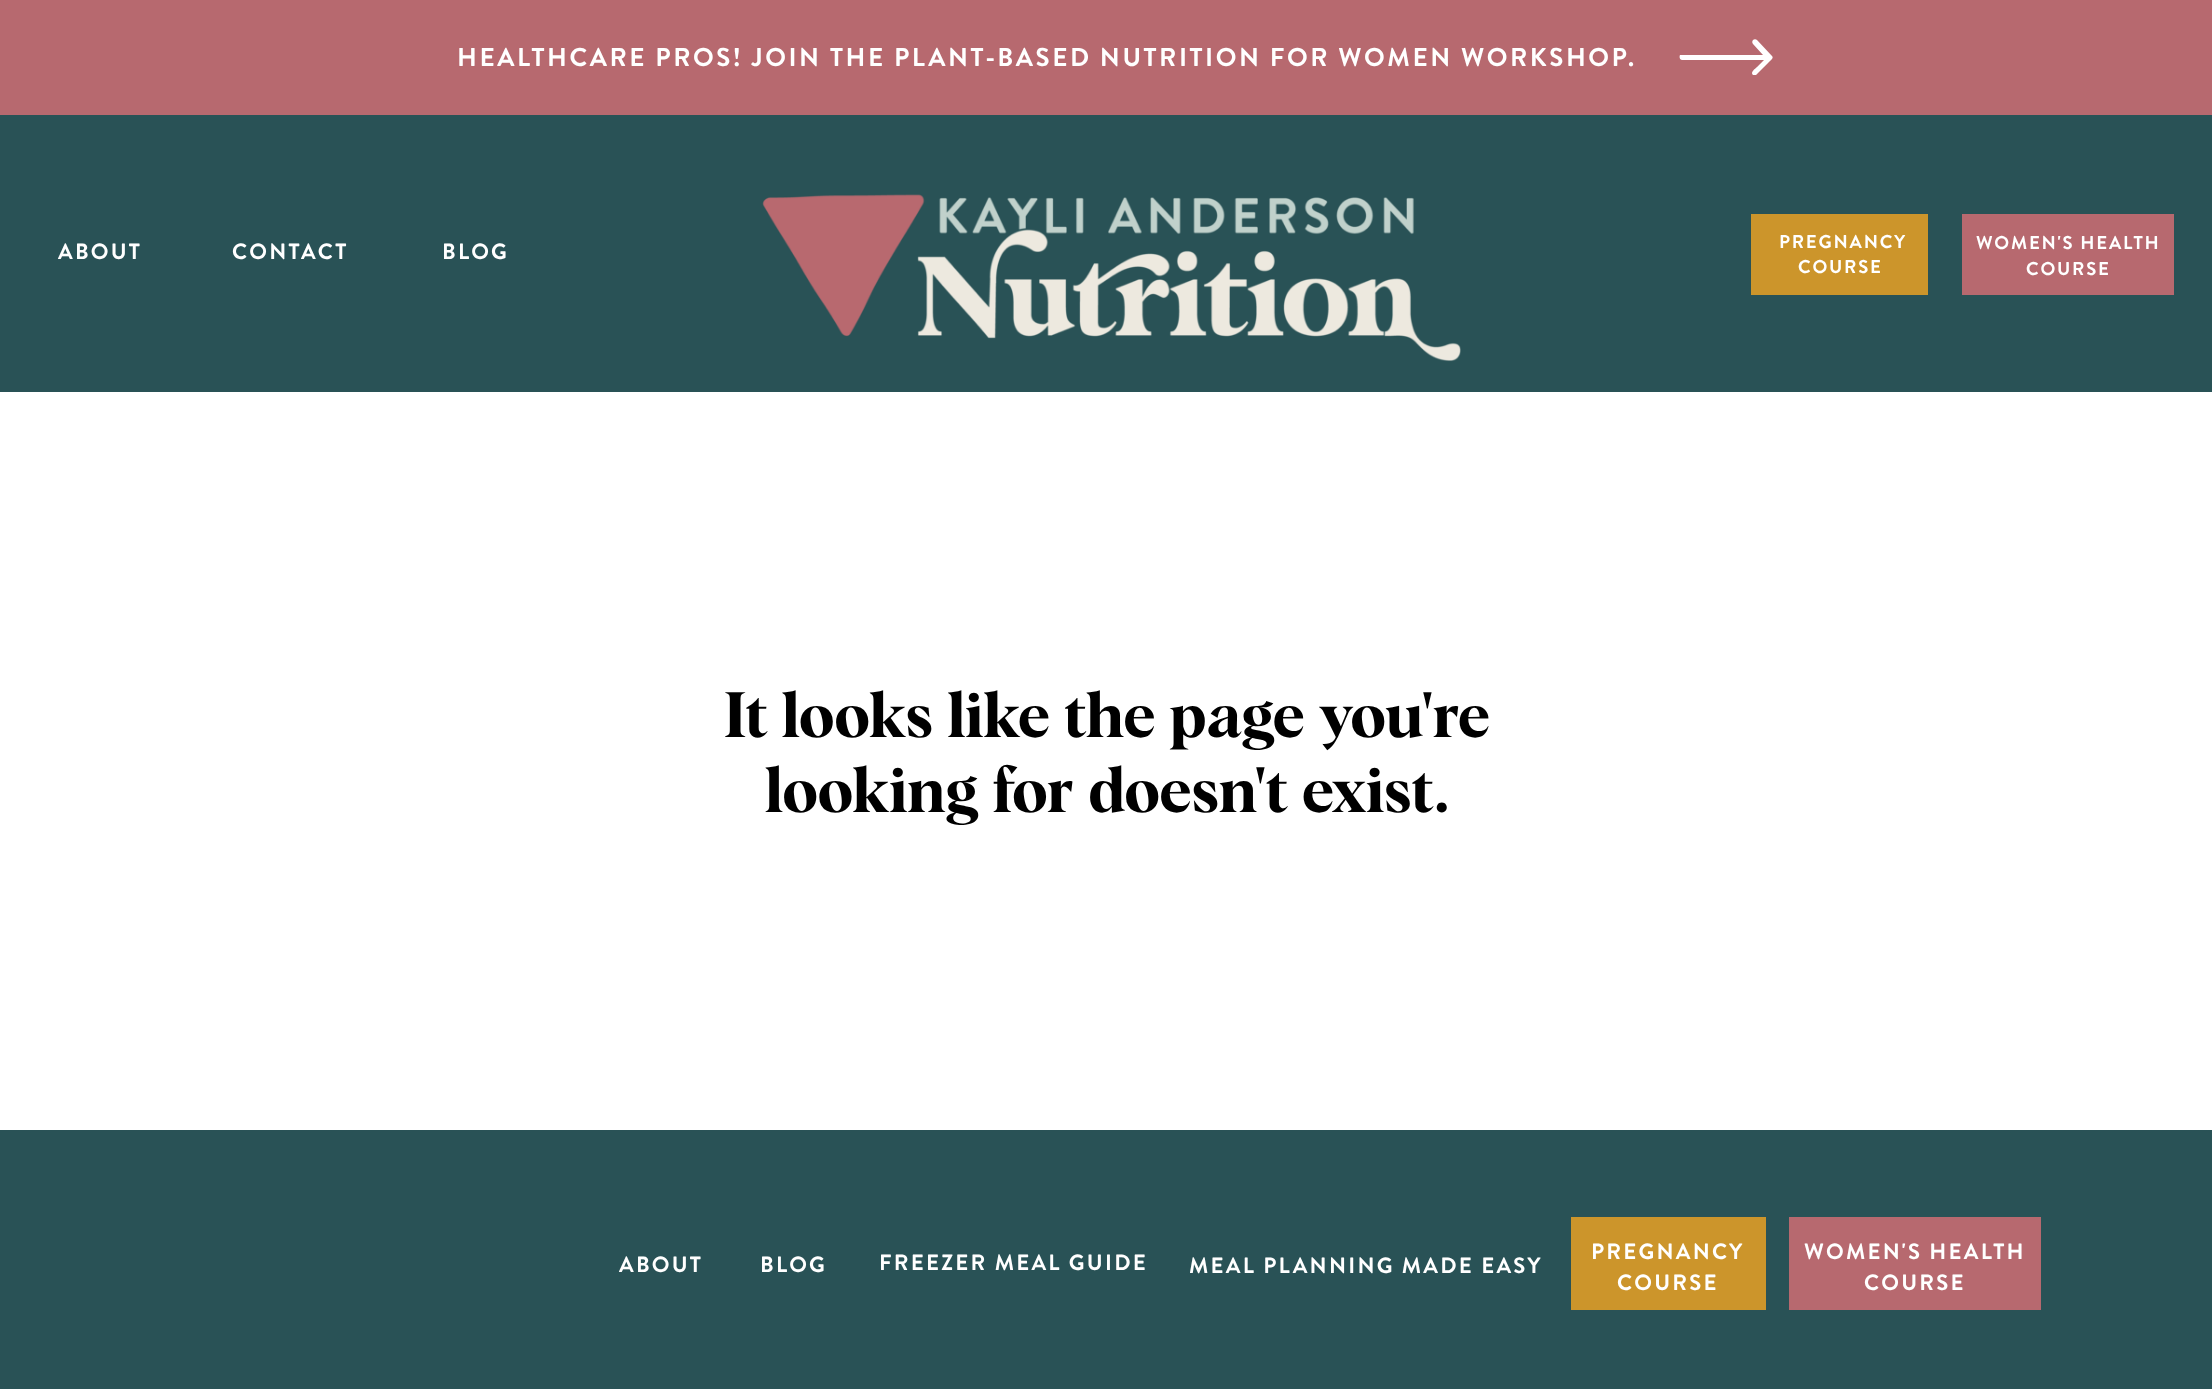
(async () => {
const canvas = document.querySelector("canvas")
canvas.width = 2212
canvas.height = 1389
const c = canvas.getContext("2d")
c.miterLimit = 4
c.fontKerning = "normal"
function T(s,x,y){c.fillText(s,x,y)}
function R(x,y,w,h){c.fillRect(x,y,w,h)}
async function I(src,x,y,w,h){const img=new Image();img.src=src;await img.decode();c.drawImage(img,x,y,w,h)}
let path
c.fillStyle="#fff"
R(0,0,2212,1389)
c.fillStyle="#b7696f"
R(0,0,2212,115)
c.letterSpacing="2.58px"
c.font="bold 25.85px Brandon Grotesque"
c.fillStyle="#fff"
T("HEALTHCARE PROS! JOIN THE PLANT-BASED NUTRITION FOR WOMEN WORKSHOP.",457,66)
path = new Path2D("M1772 56l-15-16c-1-1-3-1-4 0c-1 1-1 3 0 4l10 11h-81h-2c-1 2 0 5 2 5h82l-7 7c-2 2-7 5-4 8h3l13-13c2-2 5-4 3-6z")
c.fill(path)
c.fillStyle="#295256"
R(0,115,2212,277)
await I("1.png",762,194,699,168)
c.fillStyle="#cc952b"
R(1751,214,177,81)
c.fillStyle="#b7696f"
R(1962,214,212,81)
c.letterSpacing="2.25px"
c.font="bold 22.1px Brandon Grotesque"
c.fillStyle="#fff"
T("ABOUT",58,259)
T("CONTACT",232,259)
T("BLOG",442,259)
c.letterSpacing="1.8px"
c.font="bold 18.5px Brandon Grotesque"
T("PREGNANCY",1779,248)
T("COURSE",1798,273)
T("WOMEN'S HEALTH",1976,249)
T("COURSE",2026,275)
c.letterSpacing="0px"
c.font="600 62.75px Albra"
c.fillStyle="#000"
T("It looks like the page you're",724,737)
T("looking for doesn't exist.",765,812)
c.fillStyle="#295256"
R(0,1130,2212,259)
c.fillStyle="#cc952b"
R(1571,1217,195,93)
c.fillStyle="#b7696f"
R(1789,1217,252,93)
c.letterSpacing="2.25px"
c.font="bold 22.1px Brandon Grotesque"
c.fillStyle="#fff"
T("ABOUT",619,1272)
T("BLOG",760,1272)
T("FREEZER MEAL GUIDE",879,1270)
T("MEAL PLANNING MADE EASY",1189,1273)
T("PREGNANCY",1591,1259)
T("COURSE",1617,1290)
T("WOMEN'S HEALTH",1804,1259)
T("COURSE",1864,1290)
})()
